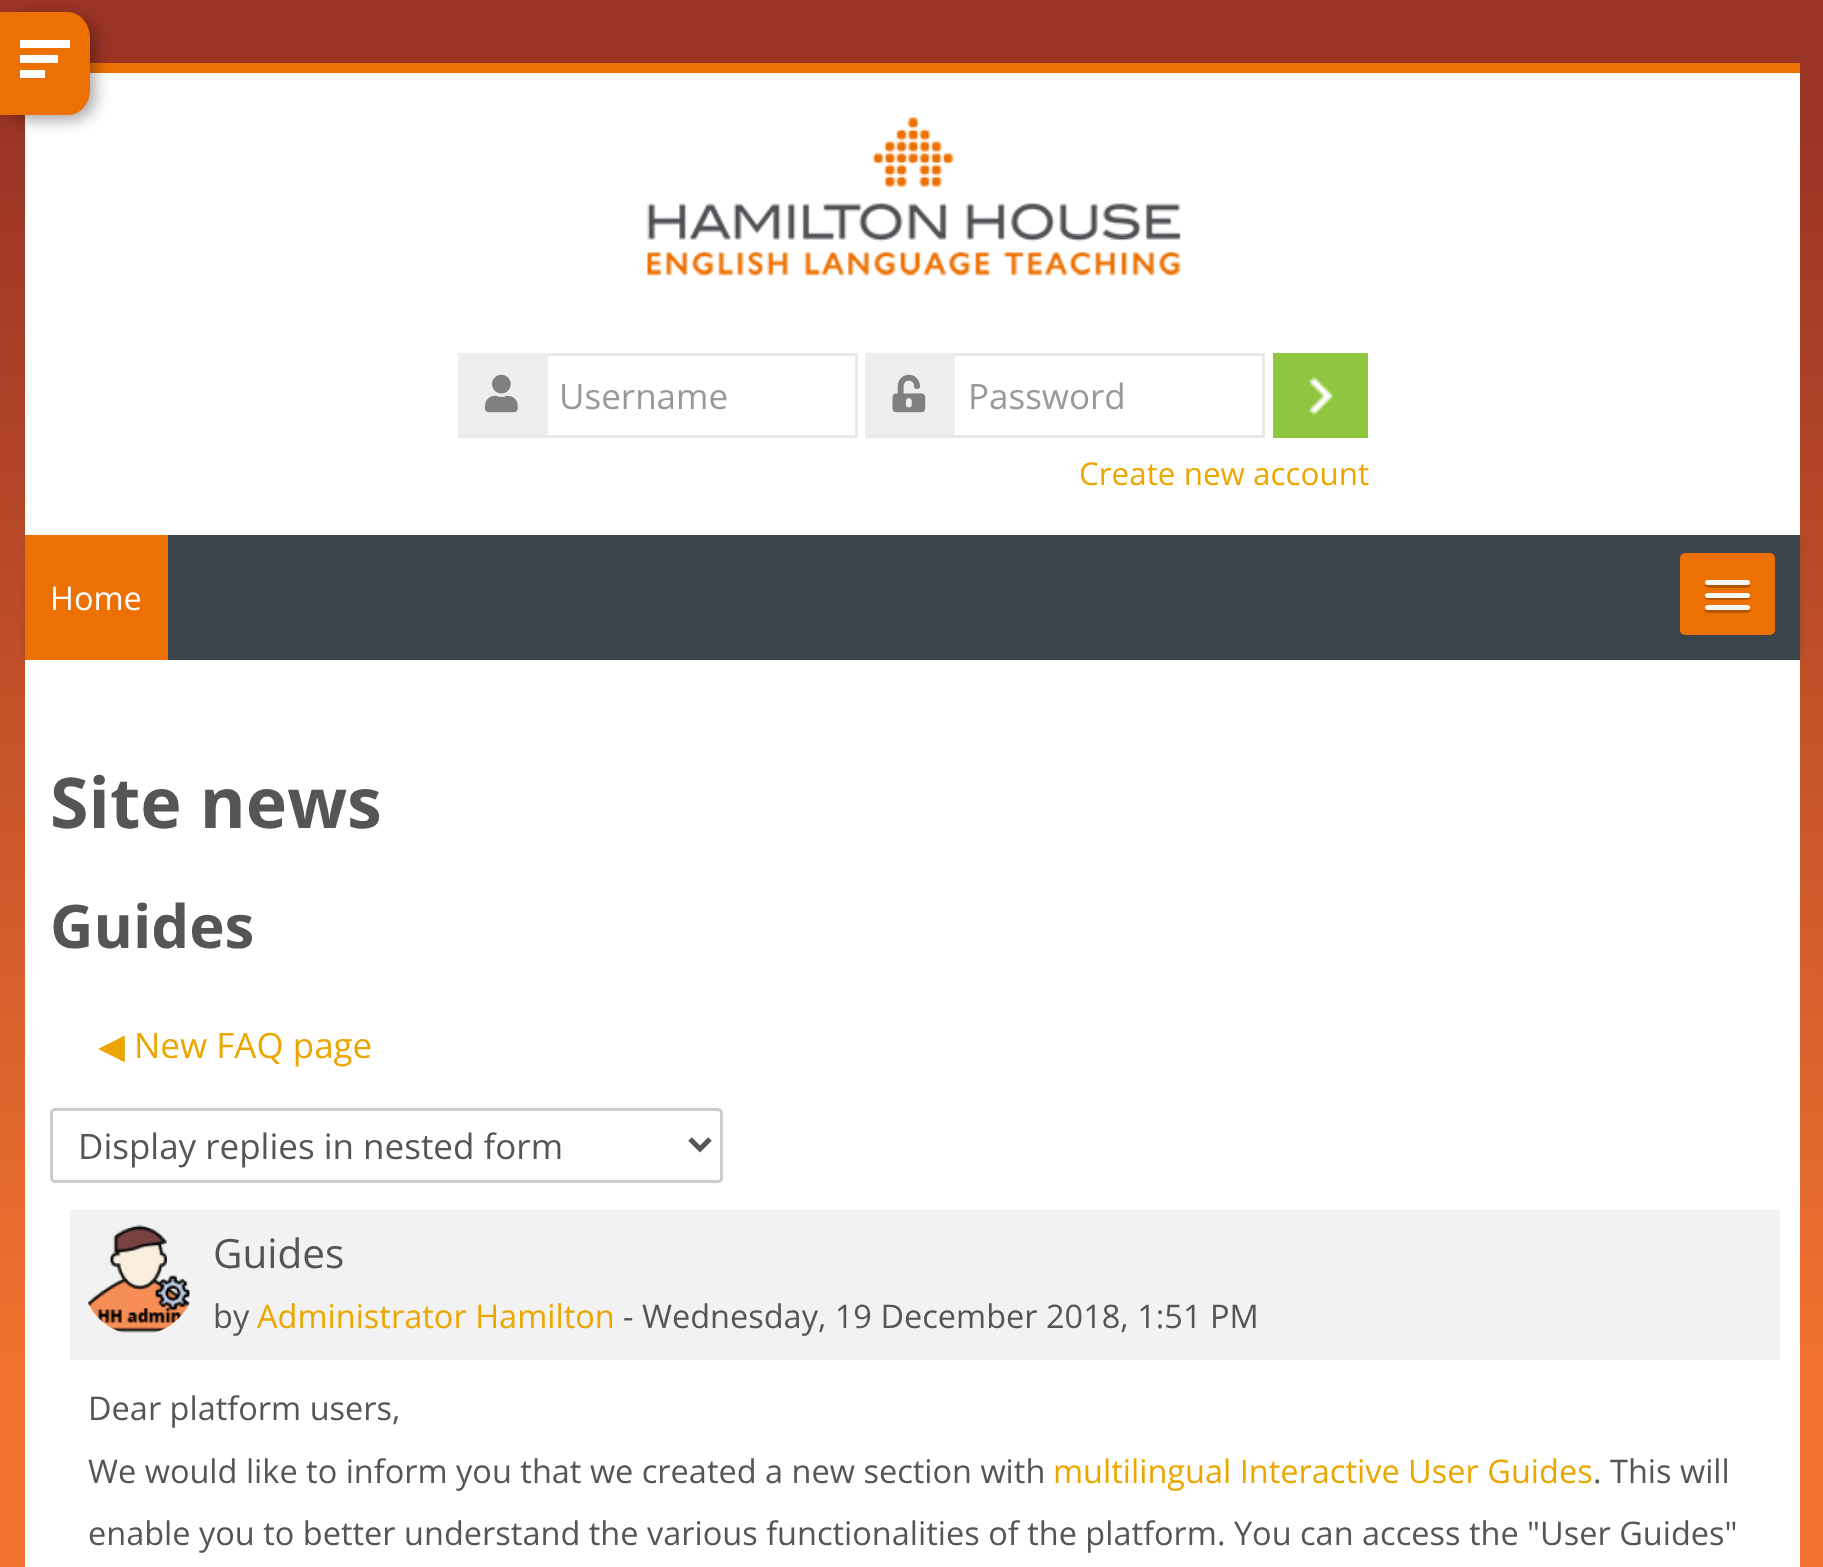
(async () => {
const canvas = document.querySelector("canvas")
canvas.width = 1823
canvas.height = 1567
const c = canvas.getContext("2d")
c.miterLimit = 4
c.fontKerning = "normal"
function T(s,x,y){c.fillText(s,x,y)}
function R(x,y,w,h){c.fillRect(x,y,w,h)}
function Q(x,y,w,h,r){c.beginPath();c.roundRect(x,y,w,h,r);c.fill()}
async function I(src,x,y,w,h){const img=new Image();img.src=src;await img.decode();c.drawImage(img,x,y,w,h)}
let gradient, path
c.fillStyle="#fff"
R(0,0,1823,1567)
gradient = c.createLinearGradient(912,0,913,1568)
gradient.addColorStop(.08,"#9a3425")
gradient.addColorStop(.88,"#f2732f")
c.fillStyle = gradient
R(0,0,1823,1567)
c.fillStyle="#ed7003"
R(90,63,1710,10)
c.fillStyle="#fff"
R(25,73,1775,462)
c.fillStyle="#00000059"
c.filter="blur(7.5px)"
c.beginPath()
c.roundRect(5,18,90,102,23)
c.fill()
c.filter="none"
c.fillStyle="#ed7003"
path = new Path2D("M0 12h68c12 0 22 12 22 26v51c0 15-10 26-22 26h-68z")
c.fill(path)
c.fillStyle="#fff"
R(20,40,50,8)
R(20,55,38,8)
R(20,70,25,8)
await I("1.png",647,117,534,159)
c.strokeStyle="#e9e9e9"
c.lineWidth=3
c.strokeRect(459.5,354.5,397,82)
c.fillStyle="#eee"
R(458,353,90,82)
await I("2.png",485,374,33,39)
c.font="35px Open Sans"
c.fillStyle="#999"
T("Username",559,409)
c.strokeRect(866.5,354.5,397,82)
c.fillStyle="#eee"
R(865,353,90,82)
await I("3.png",892,374,34,39)
c.fillStyle="#999"
T("Password",968,409)
c.fillStyle="#8ec63f"
R(1273,353,95,85)
await I("4.png",1310,377,23,38)
c.font="31.4px Open Sans"
c.fillStyle="#eba600"
T("Create new account",1079,485)
c.fillStyle="#00000012"
c.filter="blur(5px)"
c.beginPath()
c.rect(25,538,1775,125)
c.fill()
c.filter="none"
c.fillStyle="#3a454b"
R(168,535,1632,125)
c.fillStyle="#ed7003"
R(25,535,143,125)
c.font="32.5px Open Sans"
c.fillStyle="#fff"
T("Home",50,610)
c.fillStyle="#ed7003"
Q(1680,553,95,82,5)
c.fillStyle="#b25402"
path = new Path2D("M1705 584c-3 4 5 4 9 4h27c4 0 12 0 9-4l-2 1h-41z")
c.fill(path)
c.fillStyle="#f5f5f5"
Q(1705,580,45,5,2.5)
c.fillStyle="#b25402"
path = new Path2D("M1705 596c-3 5 9 4 9 4h27c0 0 12 1 9-4c-1 1-2 2-2 2h-40c-1 0-2-1-3-2z")
c.fill(path)
c.fillStyle="#f5f5f5"
Q(1705,593,45,5,2.5)
c.fillStyle="#b25402"
path = new Path2D("M1705 609c-3 4 5 4 9 4h27c4 0 12 0 9-4l-2 1h-41z")
c.fill(path)
c.fillStyle="#f5f5f5"
Q(1705,605,45,5,2.5)
c.fillStyle="#fff"
R(25,660,1775,907)
c.font="bold 70px Open Sans"
c.fillStyle="#555"
T("Site news",50,828)
c.font="bold 60px Open Sans"
T("Guides",50,948)
c.font="35px DejaVu Sans"
c.fillStyle="#eba600"
T("◀︎",98,1058)
c.font="35px Open Sans"
T("New FAQ page",134,1058)
c.beginPath()
c.roundRect(51.5,1109.5,670,72,3.5)
c.strokeStyle="#ccc"
c.stroke()
path = new Path2D("M690 1139l10 10l10-10")
c.strokeStyle="#555"
c.lineWidth=5
c.stroke(path)
c.fillStyle="#555"
T("Display replies in nested form",78,1159)
c.fillStyle="#f2f2f2"
R(70,1210,1710,150)
await I("5.png",87,1224,103,109)
c.font="40.5px Open Sans"
c.fillStyle="#555"
T("Guides",213,1268)
c.font="32.5px Open Sans"
T("by",213,1328)
c.fillStyle="#eba600"
T("Administrator Hamilton",257,1328)
c.fillStyle="#555"
T("- Wednesday, 19 December 2018, 1:51 PM",623,1328)
T("Dear platform users,",88,1420)
T("We would like to inform you that we created a new section with",88,1483)
c.fillStyle="#eba600"
T("multilingual Interactive User Guides",1053,1483)
c.fillStyle="#555"
T(". This will",1593,1483)
T("enable you to better understand the various functionalities of the platform. You can access the \"User Guides\"",88,1545)
})()
